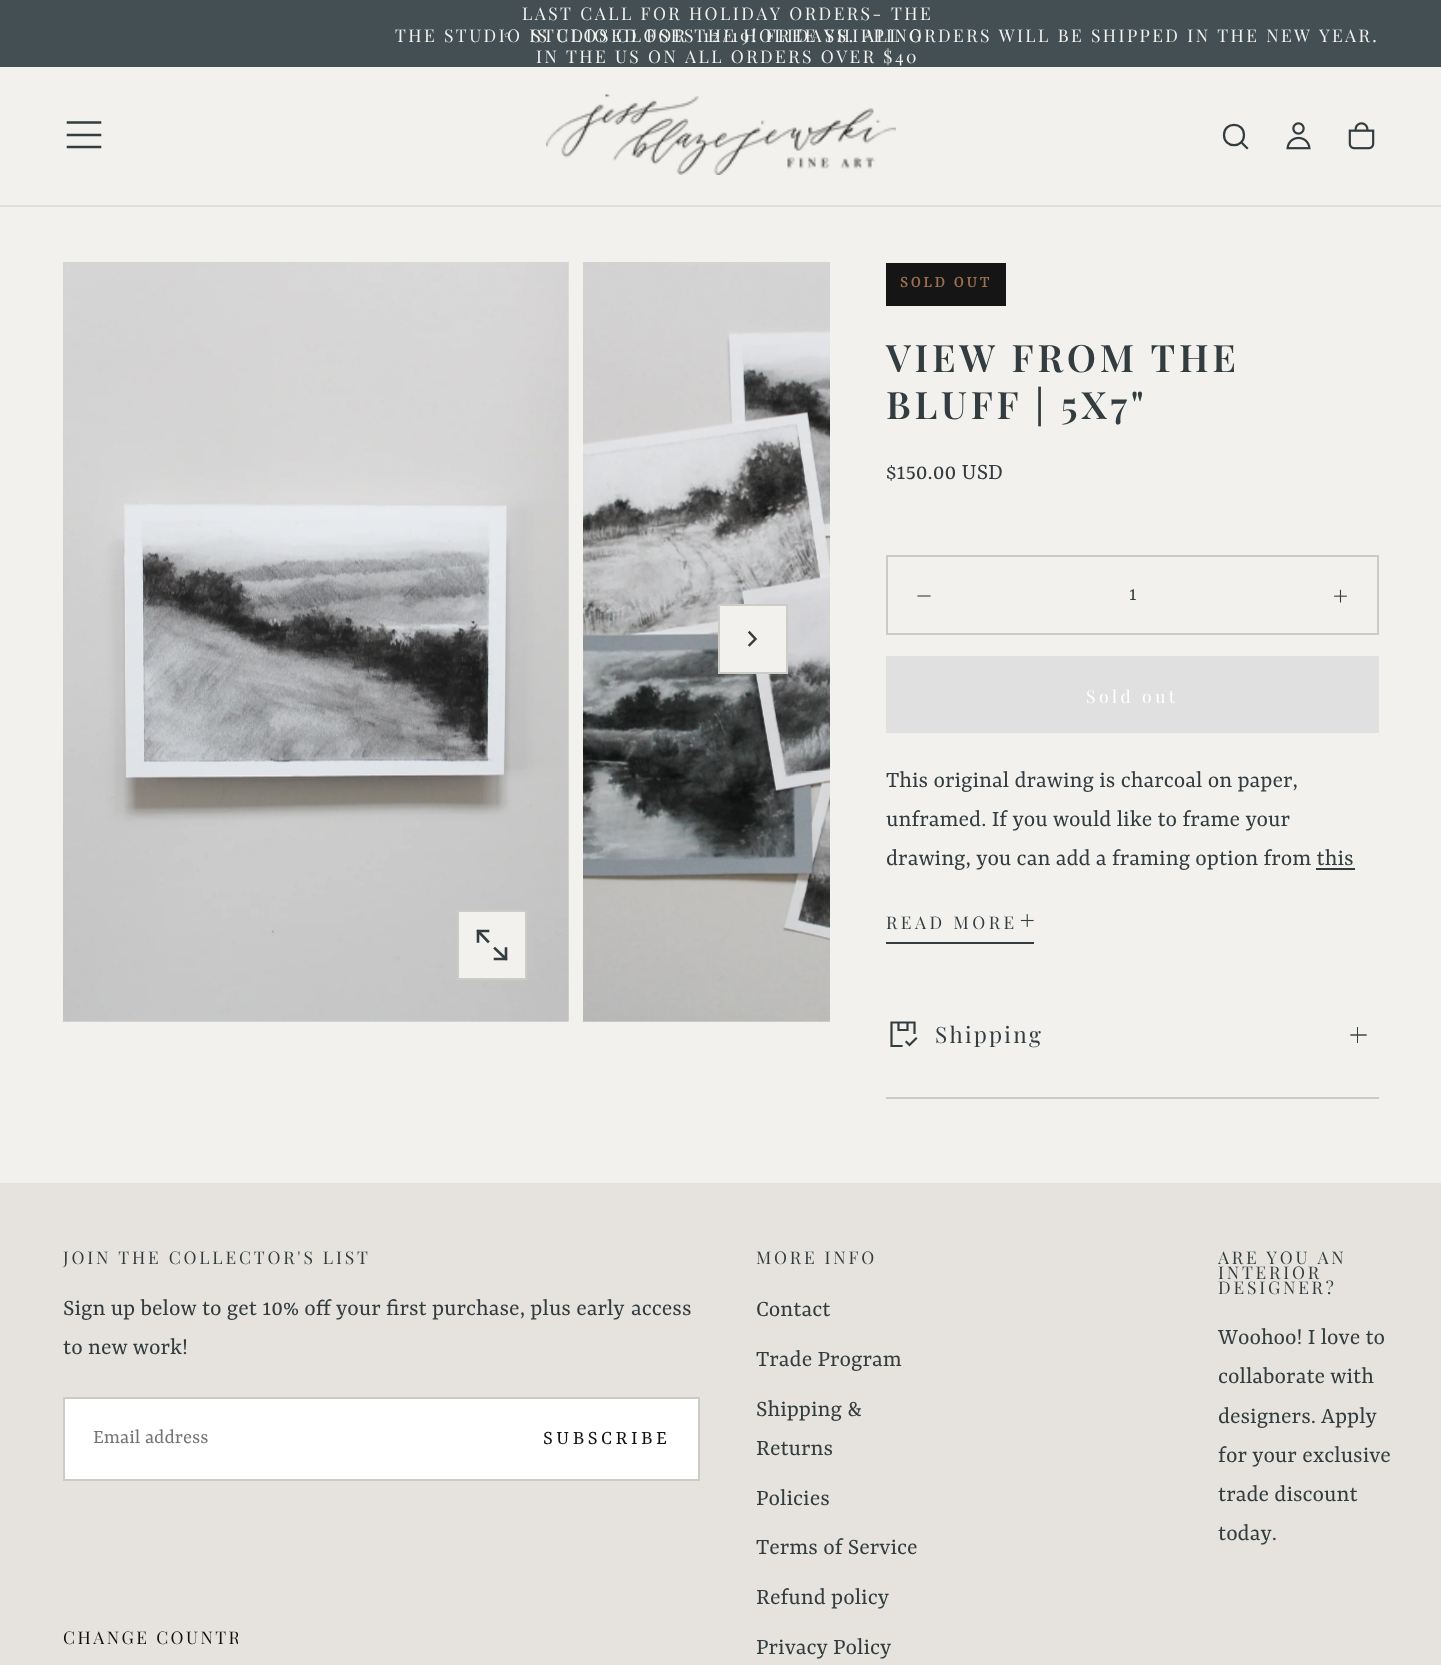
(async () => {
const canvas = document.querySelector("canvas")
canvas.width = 1441
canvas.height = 1665
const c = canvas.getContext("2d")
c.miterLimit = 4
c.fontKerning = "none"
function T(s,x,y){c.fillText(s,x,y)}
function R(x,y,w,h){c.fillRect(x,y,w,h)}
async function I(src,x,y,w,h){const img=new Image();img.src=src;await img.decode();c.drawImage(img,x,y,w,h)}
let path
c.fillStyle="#f2f1ee"
R(0,0,1441,1665)
c.fillStyle="#434f53"
R(0,0,1441,67)
await I("1.png",504,32,6,6)
c.letterSpacing="2.45px"
c.font="17.5px Playfair Display"
c.fillStyle="#f2f1ee"
T("LAST CALL FOR HOLIDAY ORDERS-",522,20)
T("THE",891,20)
T("STUDIO CLOSES 12/19! FREE SHIPPING",531,42)
T("IN THE US ON ALL ORDERS OVER $40",536,63)
T("THE STUDIO IS CLOSED FOR THE HOLIDAYS.",395,42)
T("ALL ORDERS WILL BE SHIPPED IN THE NEW YEAR.",863,42)
c.fillStyle="#dfdfdd"
R(0,205,1441,2)
path = new Path2D("M68 135h32m-32-12.5h32m-32 24.5h32")
c.strokeStyle="#333d40"
c.lineWidth=2.6
c.lineCap="square"
c.stroke(path)
await I("2.png",546,94,350,81)
path = new Path2D("M1247 148l-5.5-5.5m2.5-7.5c0 13.5-20 13.5-20 0c0-13.5 20-13.5 20 0z")
c.lineWidth=2.2
c.stroke(path)
await I("3.png",1286,122,25,28)
await I("4.png",1348,122,27,28)
c.fillStyle="#f4f4f4"
R(63,263,506,759)
await I("5.png",63,262,506,760)
c.fillStyle="#f2f1ee"
c.beginPath()
c.rect(458,911,68,68)
c.fill()
c.strokeStyle="#cccbc6"
c.lineWidth=2
c.stroke()
path = new Path2D("M488 941.5l-10-10.5m0 10.5v-10.5h10m7 17.5l11 10.5m0-10.5v10.5h-11")
c.strokeStyle="#333d40"
c.lineWidth=2.6
c.stroke(path)
await I("6.png",583,262,247,760)
c.beginPath()
c.rect(719,605,68,68)
c.fill()
c.strokeStyle="#cccbc6"
c.lineWidth=2
c.stroke()
path = new Path2D("M749.5 645l6-6l-6-6.5")
c.strokeStyle="#333d40"
c.lineWidth=2.4
c.stroke(path)
c.fillStyle="#151515"
R(886,263,120,43)
c.font="500 17.5px Yrsa"
c.fillStyle="#9e7051"
T("SOLD OUT",900,287)
c.letterSpacing="3.75px"
c.font="600 37.75px Playfair Display"
c.fillStyle="#333d40"
T("VIEW FROM THE",886,372)
T("BLUFF | 5X7\"",886,419)
c.letterSpacing="0px"
c.font="24.5px Yrsa"
T("$150.00 USD",886,479)
c.strokeStyle="#cccbc6"
c.lineWidth=2
c.strokeRect(887,556,491,78)
path = new Path2D("M918 596h12")
c.strokeStyle="#333d40"
c.lineWidth=1.1
c.stroke(path)
c.font="21px Yrsa"
T("1",1129,600)
await I("7.png",1334,589,13,14)
c.fillStyle="#e0e0e0"
R(886,656,493,77)
c.letterSpacing="3.5px"
c.font="17.5px Playfair Display"
c.fillStyle="#fff"
T("Sold out",1086,703)
c.letterSpacing="0px"
c.font="24.5px Yrsa"
c.fillStyle="#333d40"
T("This original drawing is charcoal on paper,",886,787)
T("unframed. If you would like to frame your",886,826)
T("drawing, you can add a framing option from this",886,865)
R(1316,868,39,2)
c.letterSpacing="3.5px"
c.font="17.5px Playfair Display"
T("READ MORE",886,929)
await I("8.png",1020,914,14,13)
R(886,942,148,2)
c.fillStyle="#cccbc6"
R(886,1097,493,2)
path = new Path2D("M901.5 1046h-10v-23.5h23v10.5m-16-10.5v7.5h9v-7.5m-1 19.5l3 3l6.5-6.5")
c.lineWidth=2.2
c.stroke(path)
c.letterSpacing="2.25px"
c.font="22.5px Playfair Display"
c.fillStyle="#333d40"
T("Shipping",935,1043)
path = new Path2D("M1351 1035h15")
c.lineWidth=1.4
c.stroke(path)
R(1357,1027,1,16)
c.fillStyle="#e6e3de"
R(0,1183,1441,482)
c.letterSpacing="2.8px"
c.font="17.5px Playfair Display"
c.fillStyle="#333d40"
T("JOIN THE COLLECTOR'S LIST",63,1264)
c.letterSpacing="0px"
c.font="24.5px Yrsa"
T("Sign up below to get 10% off your first purchase, plus early",63,1315)
T("access",631,1315)
T("to new work!",63,1354)
c.fillStyle="#fff"
c.beginPath()
c.rect(64,1398,635,82)
c.fill()
c.strokeStyle="#cccbc6"
c.lineWidth=2
c.stroke()
c.font="21px Yrsa"
c.fillStyle="#757575"
T("Email address",93,1443)
c.letterSpacing="3.5px"
c.fillStyle="#111"
T("SUBSCRIBE",543,1444)
c.letterSpacing="2.8px"
c.font="17.5px Playfair Display"
c.fillStyle="#333d40"
T("MORE INFO",756,1264)
c.letterSpacing="0px"
c.font="24.5px Yrsa"
T("Contact",756,1316)
T("Trade Program",756,1366)
T("Shipping &",756,1416)
T("Returns",756,1455)
T("Policies",756,1505)
T("Terms of Service",756,1554)
T("Refund policy",756,1604)
T("Privacy Policy",756,1654)
c.letterSpacing="2.8px"
c.font="17.5px Playfair Display"
T("ARE YOU AN",1218,1264)
T("INTERIOR",1218,1279)
T("DESIGNER?",1218,1294)
c.letterSpacing="0px"
c.font="24.5px Yrsa"
T("Woohoo! I love to",1218,1344)
T("collaborate with",1218,1383)
T("designers. Apply",1218,1423)
T("for your exclusive",1218,1462)
T("trade discount",1218,1501)
T("today.",1218,1540)
c.save()
c.beginPath()
c.rect(63,1615,175,37)
c.clip()
c.letterSpacing="2.45px"
c.font="17.5px Playfair Display"
c.fillStyle="#111"
T("CHANGE COUNTR",63,1644)
c.restore()
})()
